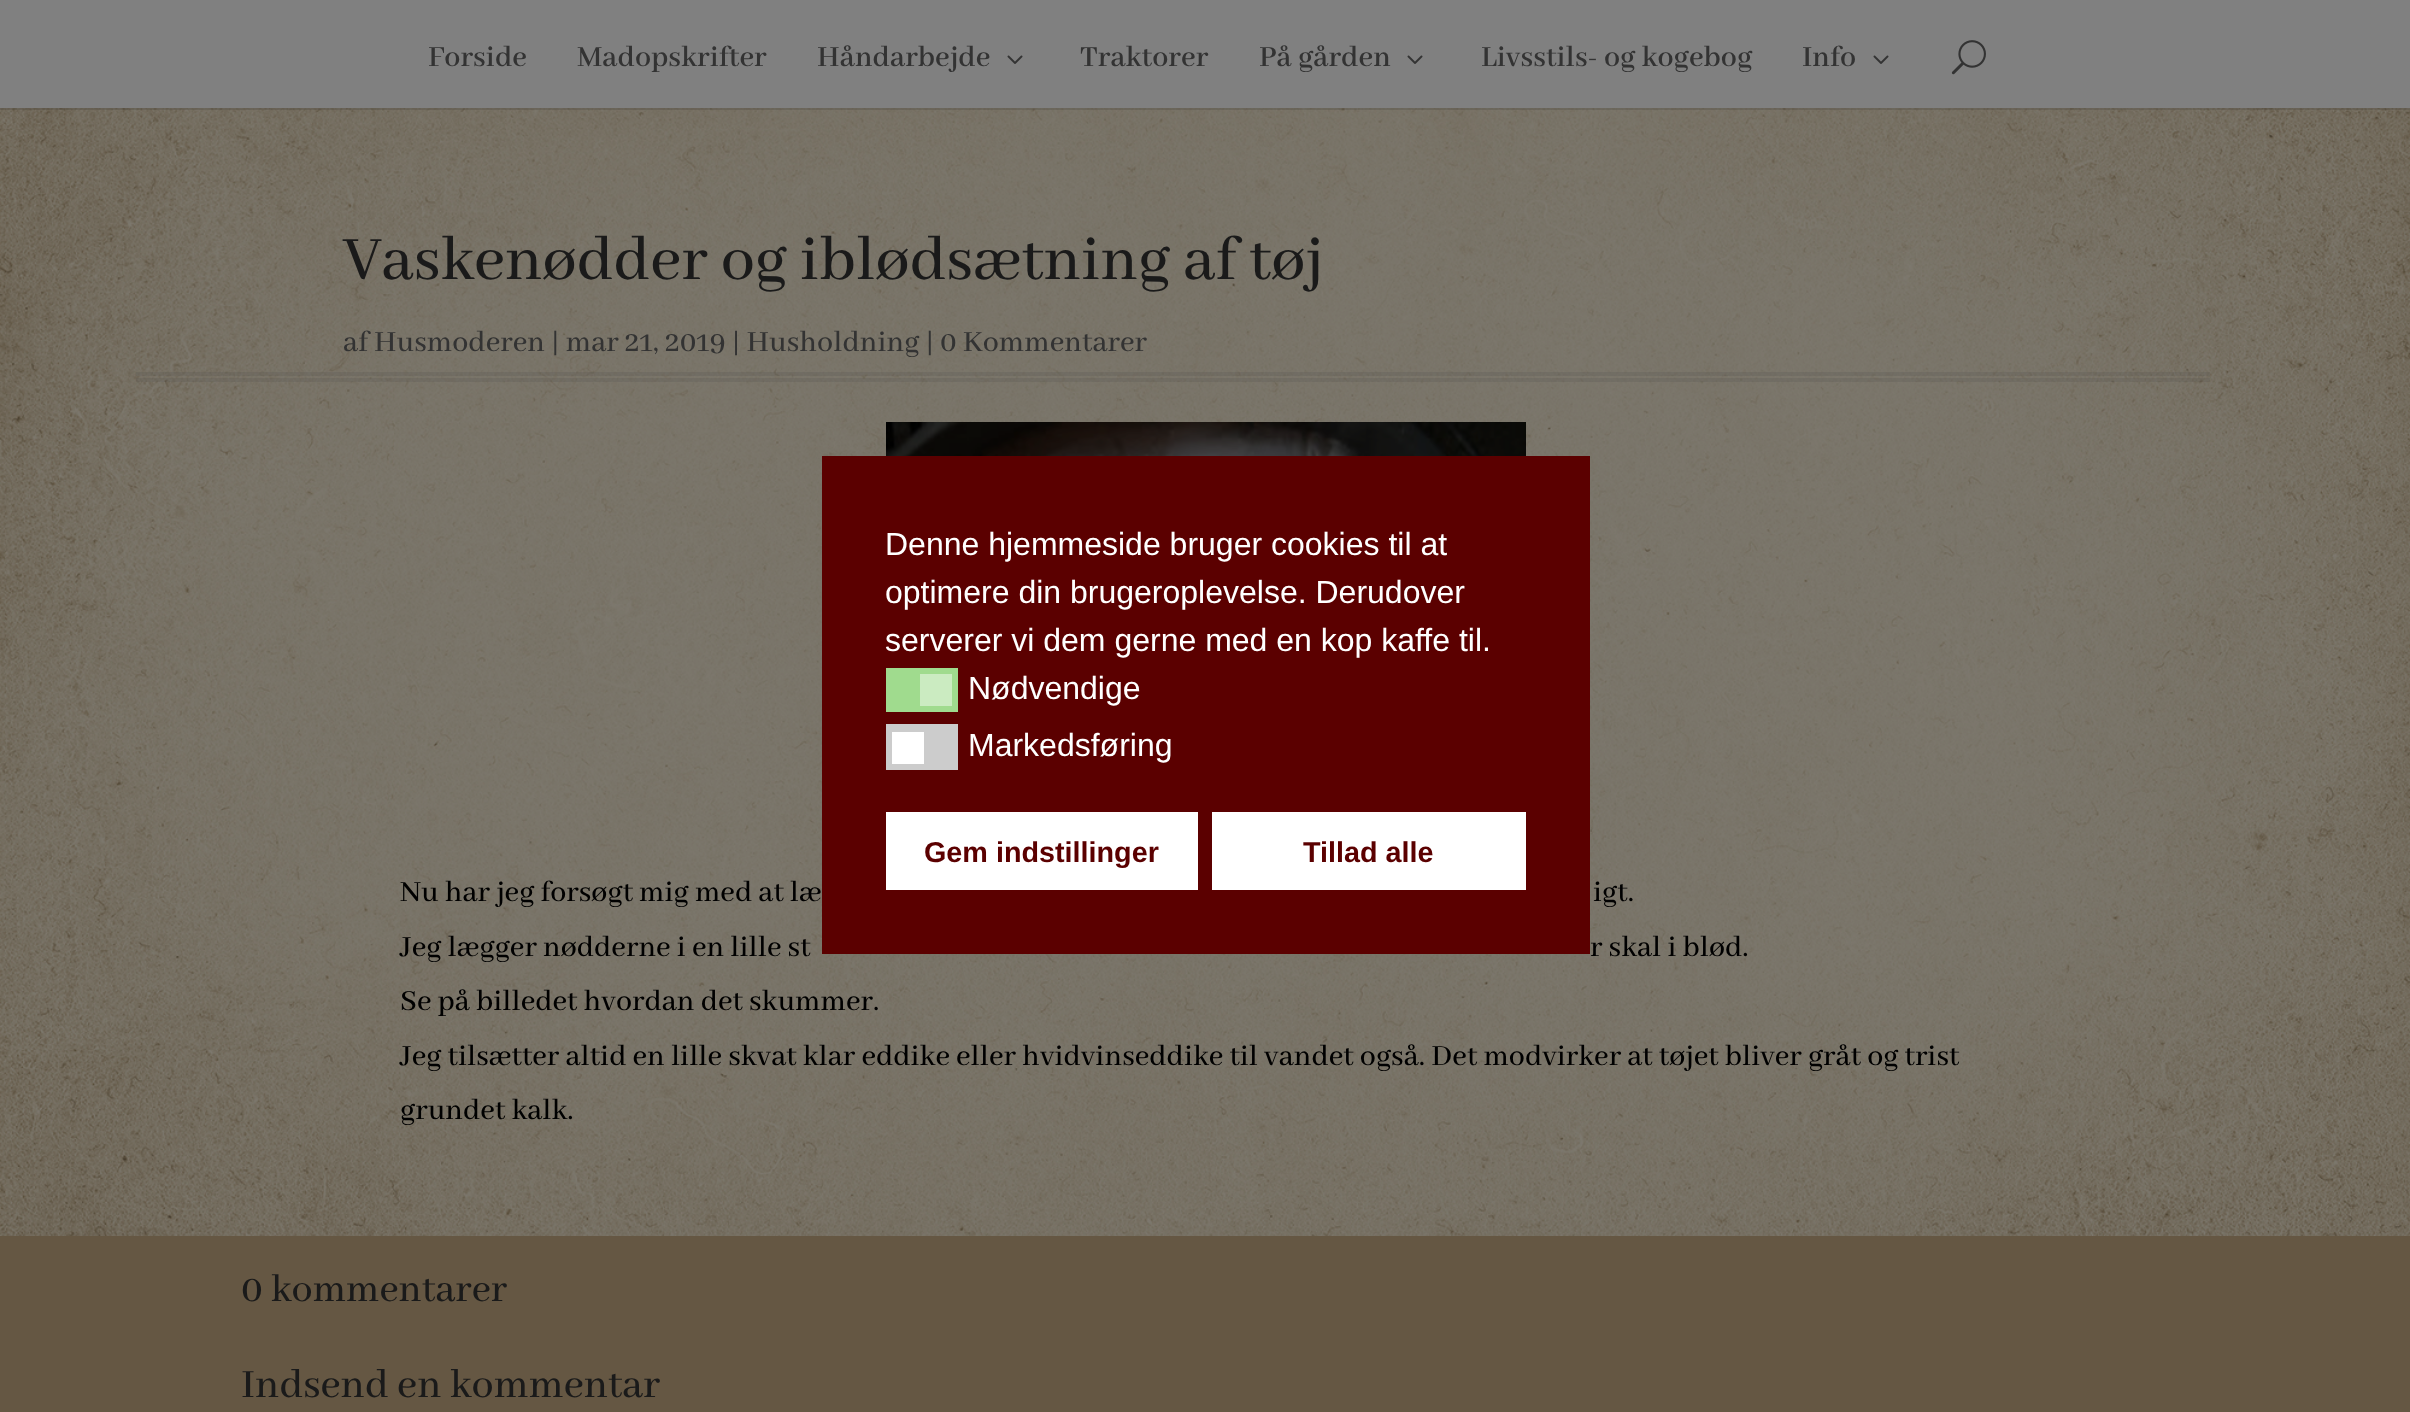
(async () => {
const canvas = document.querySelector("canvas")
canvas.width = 2410
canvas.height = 1412
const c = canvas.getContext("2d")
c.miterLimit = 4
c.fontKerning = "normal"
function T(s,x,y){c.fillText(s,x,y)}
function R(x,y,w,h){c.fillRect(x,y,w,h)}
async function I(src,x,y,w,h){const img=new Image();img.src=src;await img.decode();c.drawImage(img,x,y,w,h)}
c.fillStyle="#fff"
R(0,0,2410,1412)
await I("3.png",0,108,2410,1128)
c.fillStyle="#0000001a"
R(0,108,2410,2)
c.fillStyle="#808080"
R(0,0,2410,108)
c.font="600 32px Abhaya Libre SemiBold"
c.fillStyle="#333"
T("Forside",428,66)
T("Madopskrifter",577,66)
T("Håndarbejde",817,66)
await I("1.png",1007,55,16,9)
T("Traktorer",1080,66)
T("På gården",1259,66)
await I("1.png",1407,55,16,9)
T("Livsstils- og kogebog",1481,66)
T("Info",1802,66)
await I("1.png",1873,55,16,9)
await I("2.png",1951,40,35,35)
c.fillStyle="#40404024"
R(136,372,2074,4)
R(136,378,2074,4)
c.font="500 68px Abhaya Libre Medium"
c.fillStyle="#1a1a1a"
T("Vaskenødder og iblødsætning af tøj",343,279)
c.font="500 32px Abhaya Libre Medium"
c.fillStyle="#333"
T("af Husmoderen | mar 21, 2019 | Husholdning | 0 Kommentarer",343,351)
await I("4.png",886,422,640,34)
c.fillStyle="#000"
T("Nu har jeg forsøgt mig med at læ",400,901)
T("igt.",1593,901)
T("Jeg lægger nødderne i en lille st",400,956)
T("r skal i blød.",1590,956)
T("Se på billedet hvordan det skummer.",400,1010)
T("Jeg tilsætter altid en lille skvat klar eddike eller hvidvinseddike til vandet også. Det modvirker at tøjet bliver gråt og trist",400,1065)
T("grundet kalk.",400,1119)
c.fillStyle="#655743"
R(0,1236,2410,176)
c.font="500 42px Abhaya Libre Medium"
c.fillStyle="#1a1a1a"
T("0 kommentarer",241,1301)
c.font="500 44px Abhaya Libre Medium"
T("Indsend en kommentar",241,1397)
c.fillStyle="#5b0000"
R(822,456,768,498)
c.font="32px Liberation Sans"
c.fillStyle="#fff"
T("Denne hjemmeside bruger cookies til at",885,555)
T("optimere din brugeroplevelse. Derudover",885,603)
T("serverer vi dem gerne med en kop kaffe til.",885,651)
c.fillStyle="#a0db8e"
R(886,668,72,44)
c.fillStyle="#cbebc1"
R(920,674,32,32)
c.fillStyle="#fff"
T("Nødvendige",968,699)
c.fillStyle="#ccc"
R(886,724,72,46)
c.fillStyle="#fff"
R(892,732,32,32)
T("Markedsføring",968,756)
R(886,812,312,78)
c.font="bold 28.75px Liberation Sans"
c.fillStyle="#5b0000"
T("Gem indstillinger",924,862)
c.fillStyle="#fff"
R(1212,812,314,78)
c.fillStyle="#5b0000"
T("Tillad alle",1303,862)
})()
